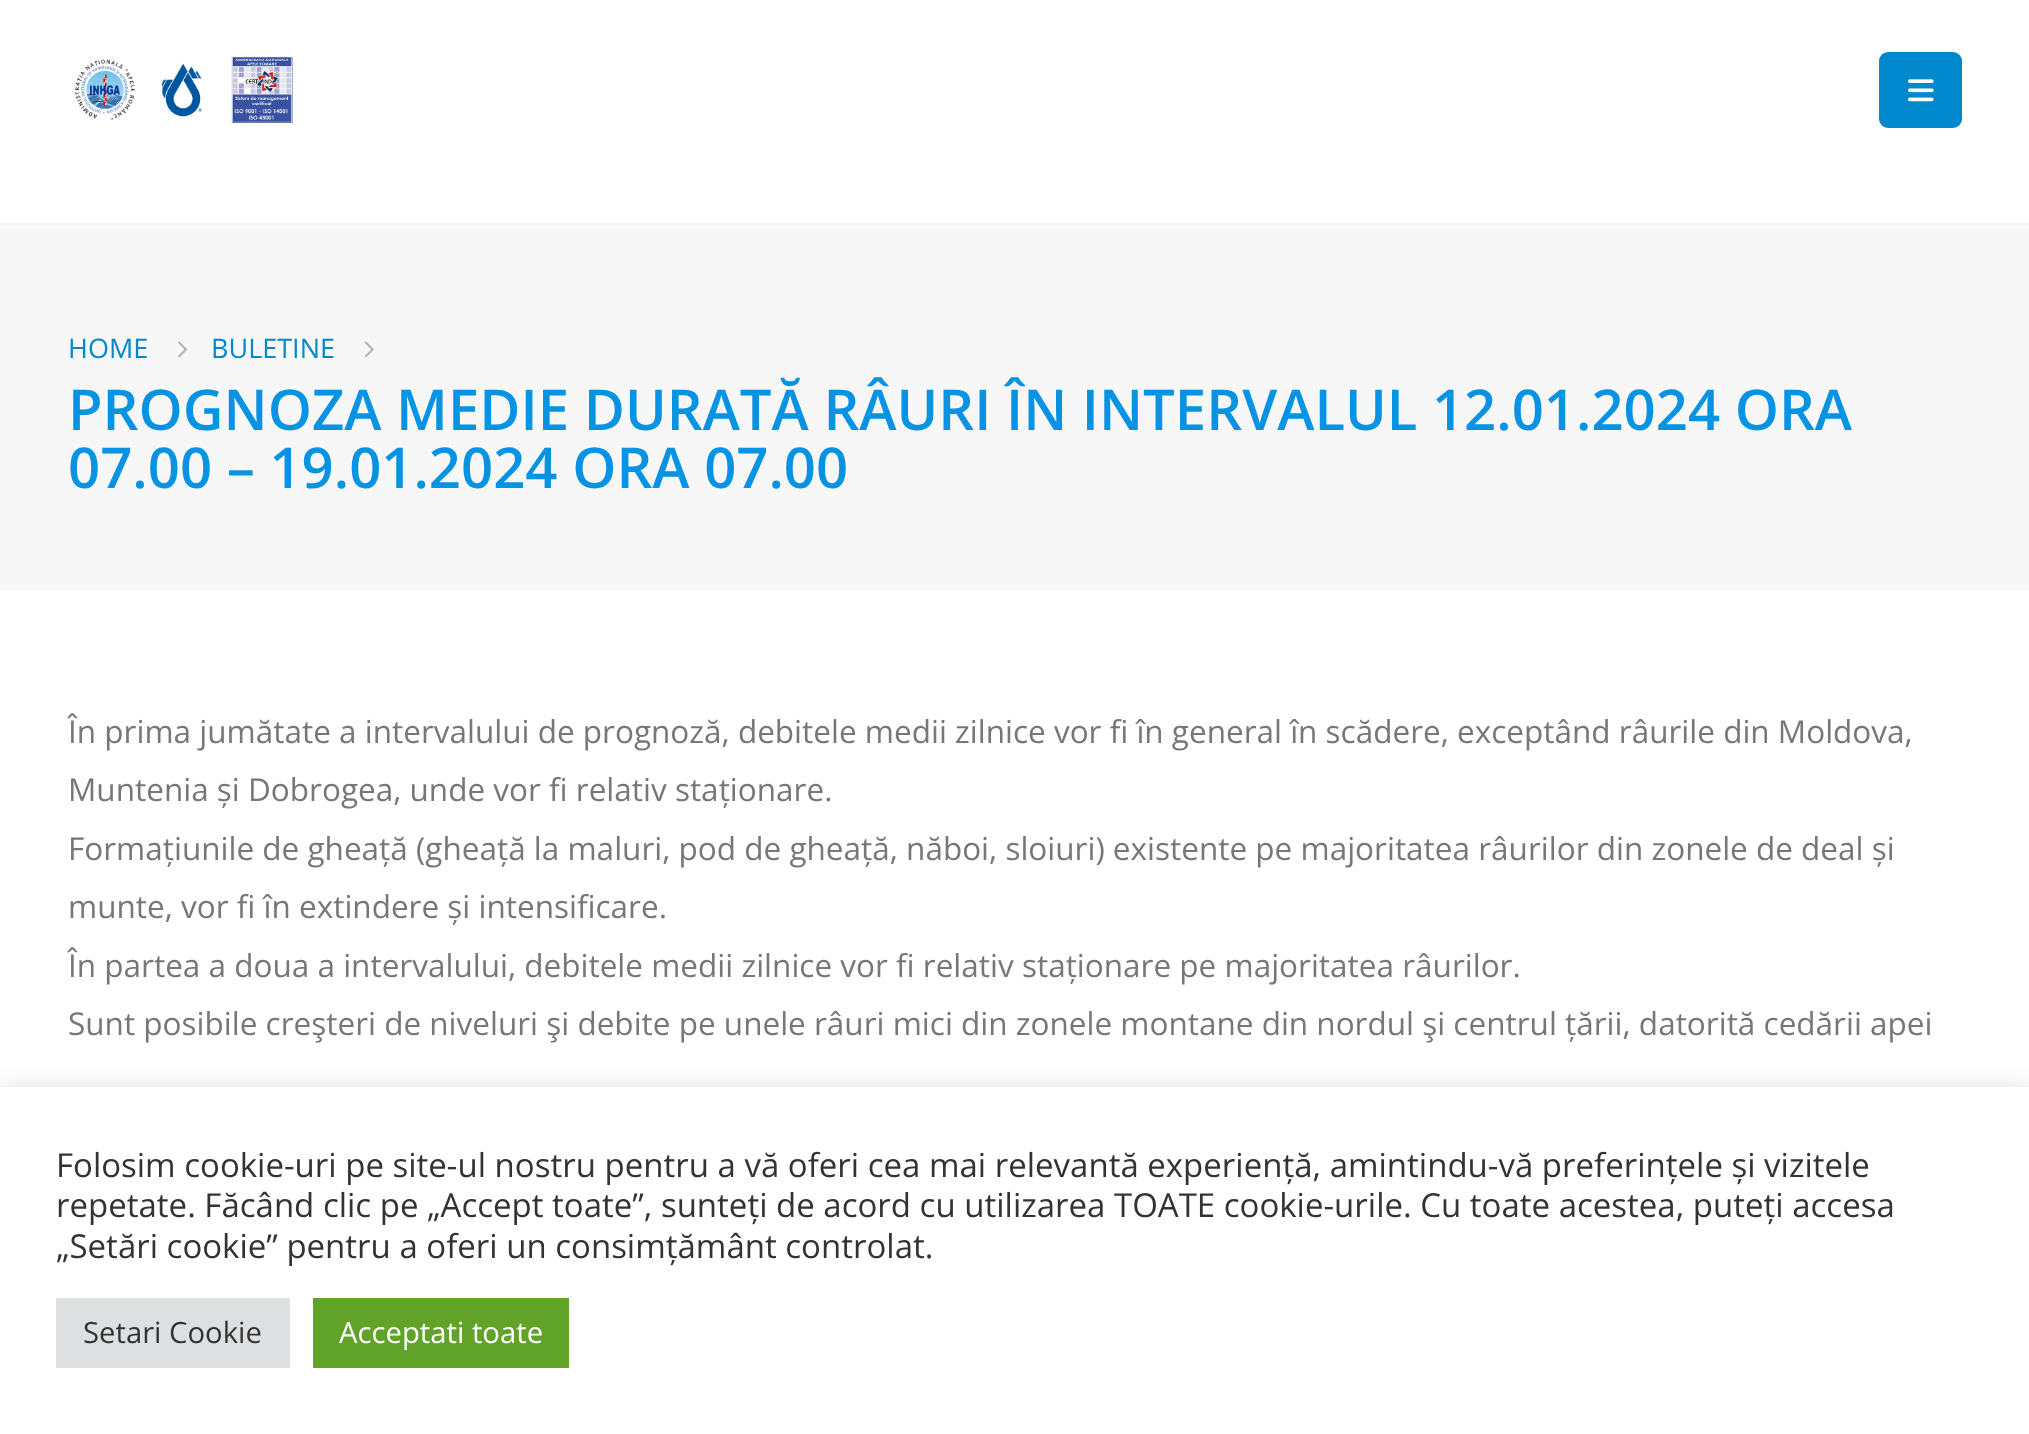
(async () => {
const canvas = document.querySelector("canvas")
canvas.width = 2029
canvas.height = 1434
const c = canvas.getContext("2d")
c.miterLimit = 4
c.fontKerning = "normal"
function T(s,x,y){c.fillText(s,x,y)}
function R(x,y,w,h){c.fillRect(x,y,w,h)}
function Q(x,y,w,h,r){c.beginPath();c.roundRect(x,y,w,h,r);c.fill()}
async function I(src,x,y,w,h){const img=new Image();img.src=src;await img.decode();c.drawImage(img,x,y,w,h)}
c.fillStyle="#fff"
R(0,0,2029,1434)
c.fillStyle="#f0f4ff"
R(0,223,2029,2)
await I("1.png",75,56,218,67)
c.fillStyle="#08c"
Q(1879,52,83,76,9)
await I("2.png",1908,79,26,23)
c.fillStyle="#f7f7f7"
R(0,225,2029,365)
c.font="27px Open Sans"
c.fillStyle="#08c"
T("HOME",68,358)
await I("3.png",178,341,10,17)
T("BULETINE",211,358)
await I("4.png",364,341,10,17)
c.font="600 56.25px Open Sans"
c.fillStyle="#0693e3"
T("PROGNOZA MEDIE DURATĂ RÂURI ÎN INTERVALUL 12.01.2024 ORA",68,430)
T("07.00 – 19.01.2024 ORA 07.00",68,488)
c.font="31.5px Open Sans"
c.fillStyle="#777"
T("În prima jumătate a intervalului de prognoză, debitele medii zilnice vor fi în general în scădere, exceptând râurile din Moldova,",68,743)
T("Muntenia și Dobrogea, unde vor fi relativ staționare.",68,801)
T("Formațiunile de gheață (gheață la maluri, pod de gheață, năboi, sloiuri) existente pe majoritatea râurilor din zonele de deal și",68,860)
T("munte, vor fi în extindere și intensificare.",68,918)
T("În partea a doua a intervalului, debitele medii zilnice vor fi relativ staționare pe majoritatea râurilor.",68,977)
T("Sunt posibile creşteri de niveluri şi debite pe unele râuri mici din zonele montane din nordul şi centrul țării, datorită cedării apei",68,1035)
c.fillStyle="#acabab4d"
c.filter="blur(11px)"
c.beginPath()
c.rect(0,1085,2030,348)
c.fill()
c.filter="none"
c.fillStyle="#fff"
R(0,1087,2029,347)
c.font="33px Open Sans"
c.fillStyle="#333"
T("Folosim cookie-uri pe site-ul nostru pentru a vă oferi cea mai relevantă experiență, amintindu-vă preferințele și vizitele",56,1177)
T("repetate. Făcând clic pe „Accept toate”, sunteți de acord cu utilizarea TOATE cookie-urile. Cu toate acestea, puteți accesa",56,1217)
T("„Setări cookie” pentru a oferi un consimțământ controlat.",56,1258)
c.fillStyle="#dedfe0"
R(56,1298,234,70)
c.font="29.25px Open Sans"
c.fillStyle="#333"
T("Setari Cookie",83,1343)
c.fillStyle="#61a229"
R(313,1298,256,70)
c.fillStyle="#fff"
T("Acceptati toate",339,1343)
})()
